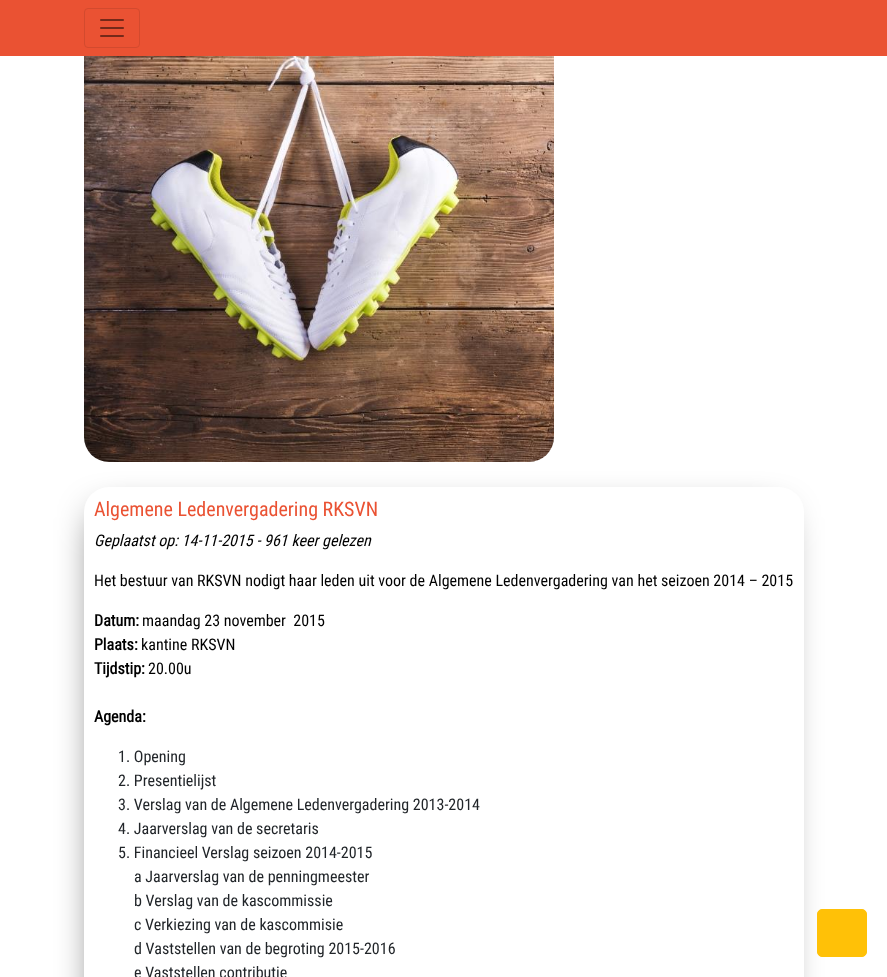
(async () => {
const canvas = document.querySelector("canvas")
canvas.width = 887
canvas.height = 977
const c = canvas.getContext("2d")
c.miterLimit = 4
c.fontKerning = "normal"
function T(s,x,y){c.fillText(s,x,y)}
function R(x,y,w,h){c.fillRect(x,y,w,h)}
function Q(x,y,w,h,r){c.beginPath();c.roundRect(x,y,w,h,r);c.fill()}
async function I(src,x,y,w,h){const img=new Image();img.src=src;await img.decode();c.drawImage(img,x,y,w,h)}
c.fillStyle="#fff"
R(0,0,887,977)
c.fillStyle="#ea5233"
R(0,0,887,56)
c.beginPath()
c.roundRect(84.5,8.5,55,39,3.5)
c.strokeStyle="#d34a2e"
c.stroke()
await I("1.png",100,19,24,18)
await I("2.png",84,56,470,406)
c.fillStyle="#000000bf"
c.filter="blur(19px)"
c.beginPath()
c.roundRect(98,516,682,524,6)
c.fill()
c.filter="none"
c.fillStyle="#fff"
Q(84,487,720,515,25)
c.font="20px Roboto Condensed"
c.fillStyle="#ea5233"
T("Algemene Ledenvergadering RKSVN",94,516)
c.font="italic 16px Roboto Condensed"
c.fillStyle="#000"
T("Geplaatst op: 14-11-2015 - 961 keer gelezen",94,546)
c.font="16px Roboto Condensed"
T("Het bestuur van RKSVN nodigt haar leden uit voor de Algemene Ledenvergadering van het seizoen 2014 – 2015",94,586)
c.font="bold 16px Roboto Condensed"
T("Datum:",94,626)
c.font="16px Roboto Condensed"
T("maandag 23 november  2015",142,626)
c.font="bold 16px Roboto Condensed"
T("Plaats:",94,650)
c.font="16px Roboto Condensed"
T("kantine RKSVN",141,650)
c.font="bold 16px Roboto Condensed"
T("Tijdstip:",94,674)
c.font="16px Roboto Condensed"
T("20.00u",148,674)
c.font="bold 16px Roboto Condensed"
T("Agenda:",94,722)
c.font="16px Roboto Condensed"
c.fillStyle="#212529"
T("1. Opening",118,762)
T("2. Presentielijst",118,786)
T("3. Verslag van de Algemene Ledenvergadering 2013-2014",118,810)
T("4. Jaarverslag van de secretaris",118,834)
T("5. Financieel Verslag seizoen 2014-2015",118,858)
T("a Jaarverslag van de penningmeester",134,882)
T("b Verslag van de kascommissie",134,906)
T("c Verkiezing van de kascommisie",134,930)
T("d Vaststellen van de begroting 2015-2016",134,954)
T("e Vaststellen contributie",134,978)
c.fillStyle="#ffc107"
c.beginPath()
c.roundRect(817.5,909.5,49,47,4.5)
c.fill()
c.strokeStyle="#ffc107"
c.stroke()
})()
